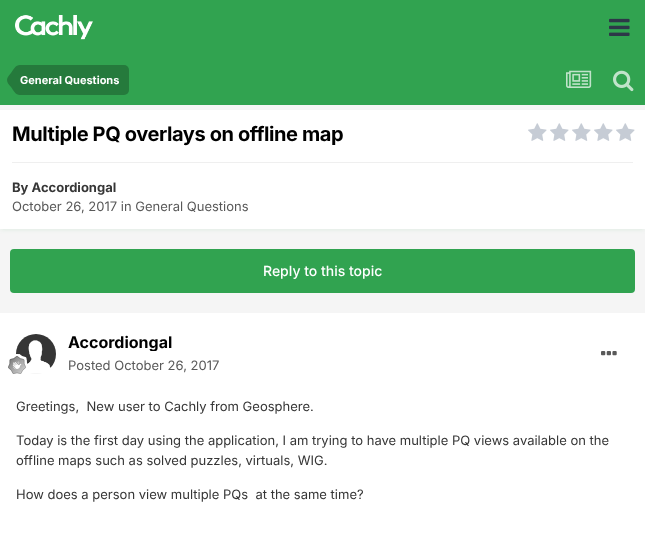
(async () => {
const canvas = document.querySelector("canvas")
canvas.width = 645
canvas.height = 543
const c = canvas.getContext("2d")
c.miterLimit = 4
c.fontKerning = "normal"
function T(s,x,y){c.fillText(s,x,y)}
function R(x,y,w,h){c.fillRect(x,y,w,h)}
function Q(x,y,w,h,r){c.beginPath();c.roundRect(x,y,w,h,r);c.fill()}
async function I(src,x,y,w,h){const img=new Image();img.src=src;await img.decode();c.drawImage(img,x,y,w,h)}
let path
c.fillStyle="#f5f5f5"
R(0,0,645,543)
c.fillStyle="#31a350"
R(0,0,645,105)
await I("1.png",15,15,78,25)
await I("2.png",609,18,21,18)
c.fillStyle="#257a3c"
c.beginPath()
c.roundRect(20,65,109,30,[0,5,5,0])
c.fill()
path = new Path2D("M20 80v15c-4.5 0-6.5-4.5-9-8c-1.5-2-4-4-4-7zm0 0h-13c0-3 2.5-5 4-7c2.5-3.5 4.5-8 9-8z")
c.fill(path)
c.font="bold 11px Inter"
c.fillStyle="#fff"
T("General Questions",20,84)
await I("3.png",566,70,26,18)
await I("4.png",613,70,21,22)
c.fillStyle="#31a3501a"
c.filter="blur(2px)"
c.beginPath()
c.rect(1,113,643,117)
c.fill()
c.filter="none"
c.fillStyle="#fff"
R(0,110,645,119)
c.letterSpacing="-0.4px"
c.font="bold 20px Inter"
c.fillStyle="#000"
T("Multiple PQ overlays on offline map",12,141)
await I("5.png",528,123,19,18)
await I("5.png",550,123,19,18)
await I("5.png",572,123,19,18)
await I("5.png",594,123,19,18)
await I("5.png",616,123,19,18)
c.fillStyle="#efefef"
R(12,162,621,1)
c.letterSpacing="0px"
c.font="bold 13px Inter"
c.fillStyle="#363636"
T("By Accordiongal",12,192)
c.font="13px Inter"
c.fillStyle="#595959"
T("October 26, 2017 in General Questions",12,211)
c.fillStyle="#31a350"
Q(10,249,625,44,4)
c.font="500 14px Inter"
c.fillStyle="#fff"
T("Reply to this topic",263,276)
R(0,313,645,230)
await I("6.png",16,334,40,40)
await I("7.png",8,354,20,20)
c.save()
c.beginPath()
c.rect(68,333,104,18)
c.clip()
c.font="bold 16px Inter"
c.fillStyle="#000"
T("Accordiongal",68,348)
c.restore()
c.font="13px Inter"
c.fillStyle="#595959"
T("Posted October 26, 2017",68,370)
await I("8.png",601,351,16,5)
c.fillStyle="#363636"
T("Greetings,  New user to Cachly from Geosphere.",16,411)
T("Today is the first day using the application, I am trying to have multiple PQ views available on the",16,445)
T("offline maps such as solved puzzles, virtuals, WIG.",16,465)
T("How does a person view multiple PQs  at the same time?",16,499)
})()
